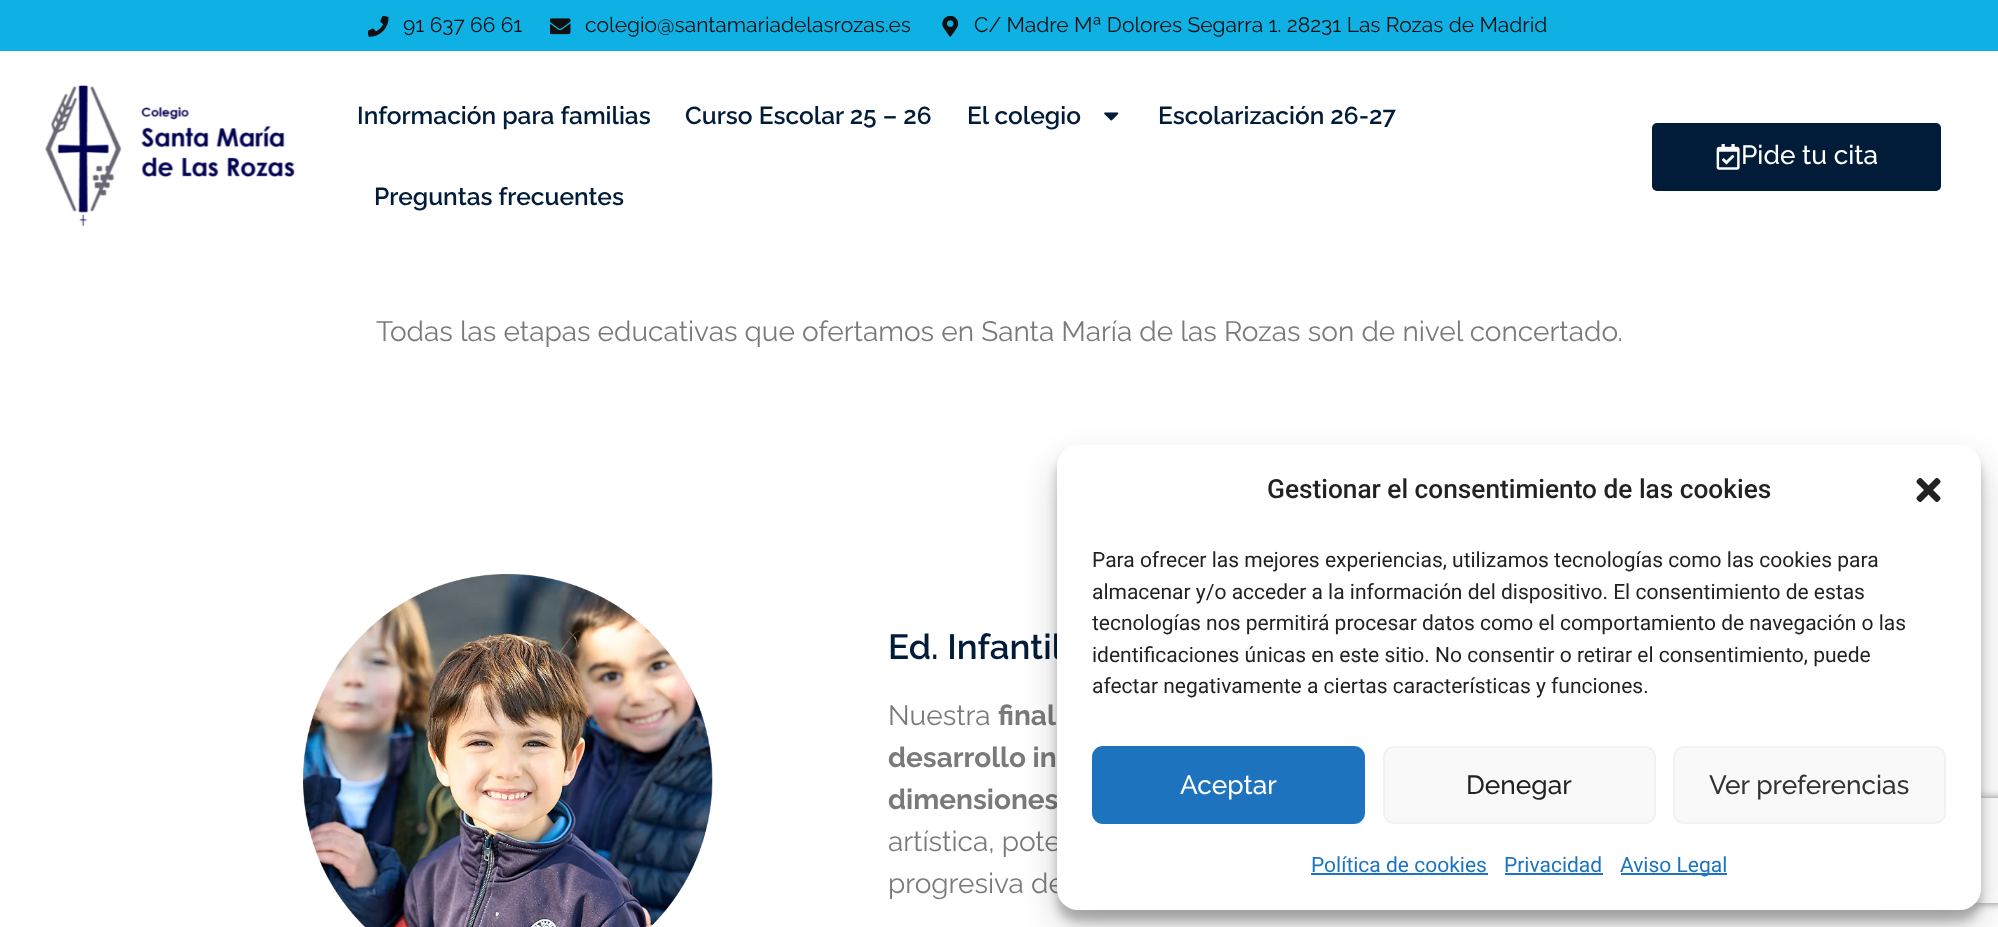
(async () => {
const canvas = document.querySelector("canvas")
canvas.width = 1998
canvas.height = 927
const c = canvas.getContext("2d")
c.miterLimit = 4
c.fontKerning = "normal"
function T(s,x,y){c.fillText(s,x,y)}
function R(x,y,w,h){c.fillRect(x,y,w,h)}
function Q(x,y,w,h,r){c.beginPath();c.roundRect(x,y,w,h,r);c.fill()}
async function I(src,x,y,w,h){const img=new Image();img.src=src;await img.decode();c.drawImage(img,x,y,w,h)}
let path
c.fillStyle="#fff"
R(0,0,1998,927)
c.fillStyle="#0fb0e4"
R(0,0,1998,51)
await I("1.png",368,16,21,21)
c.font="21px Raleway"
c.fillStyle="#0f0f0f"
T("91 637 66 61",403,32)
await I("2.png",550,18,21,17)
T("colegio@santamariadelasrozas.es",585,32)
await I("3.png",942,16,17,21)
T("C/ Madre Mª Dolores Segarra 1. 28231 Las Rozas de Madrid",974,32)
await I("4.png",45,85,250,141)
c.font="600 24.5px Raleway"
c.fillStyle="#001c38"
T("Información para familias",357,124)
T("Curso Escolar 25 – 26",685,124)
T("El colegio",967,124)
await I("5.png",1104,112,15,9)
T("Escolarización 26-27",1158,124)
T("Preguntas frecuentes",374,205)
Q(1652,123,289,68,5)
await I("6.png",1716,144,24,26)
c.font="500 26.25px Raleway"
c.fillStyle="#fff"
T("Pide tu cita",1741,164)
c.font="28px Raleway"
c.fillStyle="#7a7a7a"
T("Todas las etapas educativas que ofertamos en Santa María de las Rozas son de nivel concertado.",376,341)
await I("7.png",303,574,410,353)
c.font="600 35px Raleway"
c.fillStyle="#001c38"
T("Ed. Infantil",888,659)
c.font="28px Raleway"
c.fillStyle="#7a7a7a"
T("Nuestra",888,725)
c.font="bold 28px Raleway"
T("final",998,725)
T("desarrollo in",888,767)
T("dimensiones",888,809)
c.font="28px Raleway"
T("artística, pote",888,851)
T("progresiva de",888,893)
c.fillStyle="#0000003b"
c.filter="blur(5px)"
c.beginPath()
c.roundRect(1057,455,924,466,21)
c.fill()
c.filter="none"
c.fillStyle="#00000030"
c.filter="blur(17.5px)"
c.beginPath()
c.roundRect(1057,462,924,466,21)
c.fill()
c.filter="none"
c.save()
path = new Path2D("M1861 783h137v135h-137zm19 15h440c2 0 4 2 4 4v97c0 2-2 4-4 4h-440c-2 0-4-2-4-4v-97c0-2 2-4 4-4z")
c.clip(path,"evenodd")
c.fillStyle="#808080"
c.filter="blur(4.5px)"
c.beginPath()
c.roundRect(1876,798,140,105,4)
c.fill()
c.filter="none"
c.restore()
c.fillStyle="#fff"
Q(1057,445,924,465,21)
c.font="500 26.25px Roboto"
c.fillStyle="#222"
T("Gestionar el consentimiento de las cookies",1267,498)
await I("8.png",1916,478,25,24)
c.font="21px Roboto"
T("Para ofrecer las mejores experiencias, utilizamos tecnologías como las cookies para",1092,567)
T("almacenar y/o acceder a la información del dispositivo. El consentimiento de estas",1092,599)
T("tecnologías nos permitirá procesar datos como el comportamiento de navegación o las",1092,630)
T("identificaciones únicas en este sitio. No consentir o retirar el consentimiento, puede",1092,662)
T("afectar negativamente a ciertas características y funciones.",1092,693)
c.fillStyle="#1e73be"
c.beginPath()
c.roundRect(1093,747,271,76,10)
c.fill()
c.strokeStyle="#1e73be"
c.lineWidth=2
c.stroke()
c.font="500 26.25px Raleway"
c.fillStyle="#fff"
T("Aceptar",1180,794)
c.fillStyle="#f9f9f9"
c.beginPath()
c.roundRect(1384,747,271,76,10)
c.fill()
c.strokeStyle="#f2f2f2"
c.stroke()
c.fillStyle="#222"
T("Denegar",1466,794)
c.fillStyle="#f9f9f9"
c.beginPath()
c.roundRect(1674,747,271,76,10)
c.fill()
c.stroke()
c.fillStyle="#333"
T("Ver preferencias",1709,794)
c.font="21px Roboto"
c.fillStyle="#1e73be"
T("Política de cookies",1311,872)
R(1311,873,177,2)
T("Privacidad",1504,872)
R(1505,873,98,2)
R(1621,873,106,2)
T("Aviso Legal",1620,872)
})()
